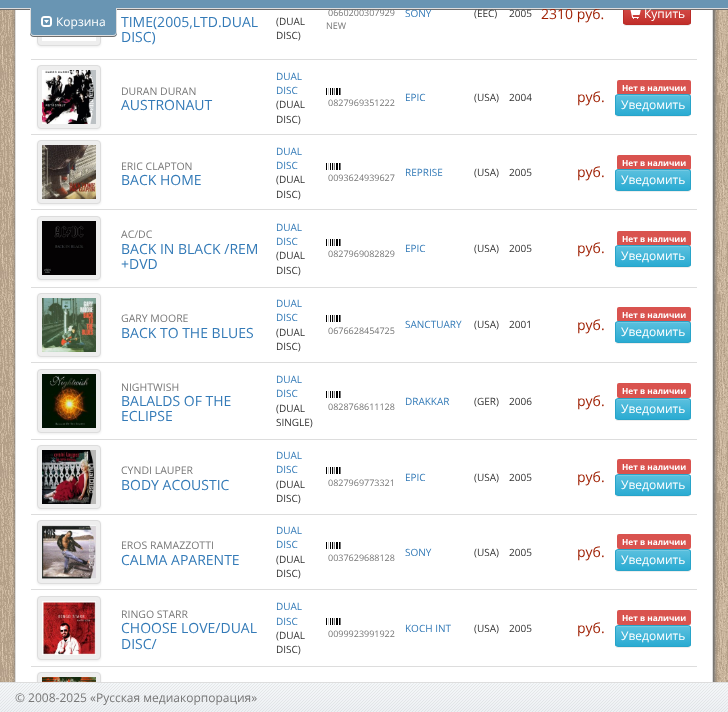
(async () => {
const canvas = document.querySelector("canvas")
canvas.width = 728
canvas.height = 712
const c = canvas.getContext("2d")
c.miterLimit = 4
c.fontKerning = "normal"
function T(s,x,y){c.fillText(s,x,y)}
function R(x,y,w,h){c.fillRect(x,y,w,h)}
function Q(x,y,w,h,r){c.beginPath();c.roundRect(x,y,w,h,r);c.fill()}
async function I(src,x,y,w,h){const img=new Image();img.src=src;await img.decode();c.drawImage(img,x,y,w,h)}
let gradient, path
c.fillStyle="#fff"
R(0,0,728,712)
await I("1.png",0,9,728,673)
c.fillStyle="#6e6e6e"
c.filter="blur(1.5px)"
c.beginPath()
c.roundRect(15,-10,700,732,5)
c.fill()
c.filter="none"
c.fillStyle="#fff"
R(16,9,696,673)
c.strokeStyle="#ddd"
c.strokeRect(15.5,-.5,697,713)
c.fillStyle="#00000012"
c.filter="blur(1px)"
c.beginPath()
c.roundRect(37,-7,64,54,4)
c.fill()
c.filter="none"
c.fillStyle="#eee"
c.beginPath()
c.roundRect(37.5,-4.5,63,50,3.5)
c.fill()
c.stroke()
c.fillStyle="#00000012"
c.filter="blur(0.5px)"
c.beginPath()
c.roundRect(623,4,68,22,3)
c.fill()
c.filter="none"
c.save()
c.beginPath()
c.roundRect(623,3,68,22,3)
c.clip()
gradient = c.createLinearGradient(657,4,657,24)
gradient.addColorStop(0,"#d9534f")
gradient.addColorStop(1,"#c12e2a")
c.fillStyle = gradient
R(623,9,68,15)
c.restore()
c.beginPath()
c.roundRect(623.5,3.5,67,21,2.5)
c.strokeStyle="#b92c28"
c.stroke()
await I("4.png",630,9,11,10)
c.fillStyle="#6e6e6e"
c.filter="blur(0.5px)"
c.beginPath()
c.rect(0,1,728,9)
c.fill()
c.filter="none"
c.fillStyle="#6995b3"
R(0,0,728,8)
c.font="14px Open Sans"
c.fillStyle="#9e1e00"
T("2310 руб.",541,19)
c.fillStyle="#ddd"
R(0,8,728,1)
await I("3.png",42,36,54,5)
c.fillStyle="#6e6e6e"
c.filter="blur(0.5px)"
c.beginPath()
c.roundRect(30,9,87,28,4)
c.fill()
c.filter="none"
c.fillStyle="#6995b3"
c.beginPath()
c.roundRect(30,8,87,28,[0,0,4,4])
c.fill()
c.fillStyle="#ddd"
path = new Path2D("M30 8h87v24c0 2-2 4-4 4h-79c-2 0-4-2-4-4zm1 0h85v24c0 2-1 3-3 3h-79c-2 0-3-1-3-3z")
c.fill(path,"evenodd")
await I("2.png",41,16,11,11)
c.font="12px Open Sans"
c.fillStyle="#fff"
T("Корзина",56,26)
c.font="14px Open Sans"
c.fillStyle="#337ab7"
T("TIME(2005,LTD.DUAL",121,27)
T("DISC)",121,42)
c.font="10px Open Sans"
c.fillStyle="#333"
T("(DUAL",276,25)
T("DISC)",276,39)
c.font="9px Open Sans"
c.fillStyle="#777"
T("0660200307929",328,16)
T("NEW",326,29)
c.font="10px Open Sans"
c.fillStyle="#337ab7"
T("SONY",405,17)
c.fillStyle="#333"
T("(EEC)",474,17)
T("2005",509,17)
c.font="12px Open Sans"
c.fillStyle="#fff"
T("Купить",644,18)
c.fillStyle="#00000012"
c.filter="blur(1px)"
c.beginPath()
c.roundRect(37,66,64,64,4)
c.fill()
c.filter="none"
c.fillStyle="#eee"
c.beginPath()
c.roundRect(37.5,65.5,63,63,3.5)
c.fill()
c.strokeStyle="#ddd"
c.stroke()
await I("5.png",42,70,54,54)
c.font="10.5px Open Sans"
c.fillStyle="#777"
T("DURAN DURAN",121,95)
c.font="14px Open Sans"
c.fillStyle="#337ab7"
T("AUSTRONAUT",121,110)
c.font="10px Open Sans"
T("DUAL",276,80)
T("DISC",276,94)
c.fillStyle="#333"
T("(DUAL",276,108)
T("DISC)",276,123)
c.fillStyle="#337ab7"
T("EPIC",405,101)
c.fillStyle="#333"
T("(USA)",474,101)
T("2004",509,101)
c.font="14px Open Sans"
c.fillStyle="#9e1e00"
T("руб.",577,102)
c.fillStyle="#ddd"
R(31,59,666,1)
c.fillStyle="#d9534f"
Q(617,80,74,15,2)
c.font="bold 8.25px Open Sans"
c.fillStyle="#fff"
T("Нет в наличии",622,91)
c.fillStyle="#00000012"
c.filter="blur(0.5px)"
c.beginPath()
c.roundRect(615,95,76,22,3)
c.fill()
c.filter="none"
c.save()
c.beginPath()
c.roundRect(615,94,76,22,3)
c.clip()
gradient = c.createLinearGradient(653,95,653,115)
gradient.addColorStop(0,"#5bc0de")
gradient.addColorStop(1,"#2aabd2")
c.fillStyle = gradient
R(615,95,76,20)
c.restore()
c.fillStyle="#73c9e3"
path = new Path2D("M618 96h70c1 0 2 1 2 2c0-6-10-3-14-3h-46c-4 0-14-3-14 3c0-1 1-2 2-2z")
c.fill(path)
c.beginPath()
c.roundRect(615.5,94.5,75,21,2.5)
c.strokeStyle="#28a4c9"
c.stroke()
c.font="12px Open Sans"
c.fillStyle="#fff"
T("Уведомить",621,109)
await I("6.png",326,88,15,7)
c.font="9px Open Sans"
c.fillStyle="#777"
T("0827969351222",328,106)
c.fillStyle="#00000012"
c.filter="blur(1px)"
c.beginPath()
c.roundRect(37,141,64,64,4)
c.fill()
c.filter="none"
c.fillStyle="#eee"
c.beginPath()
c.roundRect(37.5,140.5,63,63,3.5)
c.fill()
c.strokeStyle="#ddd"
c.stroke()
await I("7.png",42,145,54,54)
c.font="10.5px Open Sans"
c.fillStyle="#777"
T("ERIC CLAPTON",121,170)
c.font="14px Open Sans"
c.fillStyle="#337ab7"
T("BACK HOME",121,185)
c.font="10px Open Sans"
T("DUAL",276,155)
T("DISC",276,169)
c.fillStyle="#333"
T("(DUAL",276,183)
T("DISC)",276,198)
c.fillStyle="#337ab7"
T("REPRISE",405,176)
c.fillStyle="#333"
T("(USA)",474,176)
T("2005",509,176)
c.font="14px Open Sans"
c.fillStyle="#9e1e00"
T("руб.",577,177)
c.fillStyle="#ddd"
R(31,134,666,1)
c.fillStyle="#d9534f"
Q(617,155,74,15,2)
c.font="bold 8.25px Open Sans"
c.fillStyle="#fff"
T("Нет в наличии",622,166)
c.fillStyle="#00000012"
c.filter="blur(0.5px)"
c.beginPath()
c.roundRect(615,170,76,22,3)
c.fill()
c.filter="none"
c.save()
c.beginPath()
c.roundRect(615,169,76,22,3)
c.clip()
gradient = c.createLinearGradient(653,170,653,190)
gradient.addColorStop(0,"#5bc0de")
gradient.addColorStop(1,"#2aabd2")
c.fillStyle = gradient
R(615,170,76,20)
c.restore()
c.fillStyle="#73c9e3"
path = new Path2D("M618 171h70c1 0 2 1 2 2c0-6-10-3-14-3h-46c-4 0-14-3-14 3c0-1 1-2 2-2z")
c.fill(path)
c.beginPath()
c.roundRect(615.5,169.5,75,21,2.5)
c.strokeStyle="#28a4c9"
c.stroke()
c.font="12px Open Sans"
c.fillStyle="#fff"
T("Уведомить",621,184)
await I("6.png",326,163,15,7)
c.font="9px Open Sans"
c.fillStyle="#777"
T("0093624939627",328,181)
c.fillStyle="#00000012"
c.filter="blur(1px)"
c.beginPath()
c.roundRect(37,217,64,64,4)
c.fill()
c.filter="none"
c.fillStyle="#eee"
c.beginPath()
c.roundRect(37.5,216.5,63,63,3.5)
c.fill()
c.strokeStyle="#ddd"
c.stroke()
await I("8.png",42,221,54,54)
c.font="10.5px Open Sans"
c.fillStyle="#777"
T("AC/DC",121,238)
c.font="14px Open Sans"
c.fillStyle="#337ab7"
T("BACK IN BLACK /REM",121,254)
T("+DVD",121,269)
c.font="10px Open Sans"
T("DUAL",276,231)
T("DISC",276,245)
c.fillStyle="#333"
T("(DUAL",276,259)
T("DISC)",276,274)
c.fillStyle="#337ab7"
T("EPIC",405,252)
c.fillStyle="#333"
T("(USA)",474,252)
T("2005",509,252)
c.font="14px Open Sans"
c.fillStyle="#9e1e00"
T("руб.",577,253)
c.fillStyle="#ddd"
R(31,209,666,1)
c.fillStyle="#d9534f"
Q(617,231,74,15,2)
c.font="bold 8.25px Open Sans"
c.fillStyle="#fff"
T("Нет в наличии",622,242)
c.fillStyle="#00000012"
c.filter="blur(0.5px)"
c.beginPath()
c.roundRect(615,246,76,22,3)
c.fill()
c.filter="none"
c.save()
c.beginPath()
c.roundRect(615,245,76,22,3)
c.clip()
gradient = c.createLinearGradient(653,246,653,266)
gradient.addColorStop(0,"#5bc0de")
gradient.addColorStop(1,"#2aabd2")
c.fillStyle = gradient
R(615,246,76,20)
c.restore()
c.fillStyle="#73c9e3"
path = new Path2D("M618 247h70c1 0 2 1 2 2c0-6-10-3-14-3h-46c-4 0-14-3-14 3c0-1 1-2 2-2z")
c.fill(path)
c.beginPath()
c.roundRect(615.5,245.5,75,21,2.5)
c.strokeStyle="#28a4c9"
c.stroke()
c.font="12px Open Sans"
c.fillStyle="#fff"
T("Уведомить",621,260)
await I("6.png",326,239,15,7)
c.font="9px Open Sans"
c.fillStyle="#777"
T("0827969082829",328,257)
c.fillStyle="#00000012"
c.filter="blur(1px)"
c.beginPath()
c.roundRect(37,294,64,64,4)
c.fill()
c.filter="none"
c.fillStyle="#eee"
c.beginPath()
c.roundRect(37.5,293.5,63,63,3.5)
c.fill()
c.strokeStyle="#ddd"
c.stroke()
await I("9.png",42,298,54,54)
c.font="10.5px Open Sans"
c.fillStyle="#777"
T("GARY MOORE",121,322)
c.font="14px Open Sans"
c.fillStyle="#337ab7"
T("BACK TO THE BLUES",121,338)
c.font="10px Open Sans"
T("DUAL",276,307)
T("DISC",276,321)
c.fillStyle="#333"
T("(DUAL",276,336)
T("DISC)",276,350)
c.fillStyle="#337ab7"
T("SANCTUARY",405,328)
c.fillStyle="#333"
T("(USA)",474,328)
T("2001",509,328)
c.font="14px Open Sans"
c.fillStyle="#9e1e00"
T("руб.",577,330)
c.fillStyle="#ddd"
R(31,287,666,1)
c.fillStyle="#d9534f"
Q(617,307,74,15,2)
c.font="bold 8.25px Open Sans"
c.fillStyle="#fff"
T("Нет в наличии",622,318)
c.fillStyle="#00000012"
c.filter="blur(0.5px)"
c.beginPath()
c.roundRect(615,322,76,22,3)
c.fill()
c.filter="none"
c.save()
c.beginPath()
c.roundRect(615,321,76,22,3)
c.clip()
gradient = c.createLinearGradient(653,322,653,342)
gradient.addColorStop(0,"#5bc0de")
gradient.addColorStop(1,"#2aabd2")
c.fillStyle = gradient
R(615,322,76,20)
c.restore()
c.fillStyle="#73c9e3"
path = new Path2D("M618 323h70c1 0 2 1 2 2c0-6-10-3-14-3h-46c-4 0-14-3-14 3c0-1 1-2 2-2z")
c.fill(path)
c.beginPath()
c.roundRect(615.5,321.5,75,21,2.5)
c.strokeStyle="#28a4c9"
c.stroke()
c.font="12px Open Sans"
c.fillStyle="#fff"
T("Уведомить",621,336)
await I("6.png",326,315,15,7)
c.font="9px Open Sans"
c.fillStyle="#777"
T("0676628454725",328,334)
c.fillStyle="#00000012"
c.filter="blur(1px)"
c.beginPath()
c.roundRect(37,370,64,64,4)
c.fill()
c.filter="none"
c.fillStyle="#eee"
c.beginPath()
c.roundRect(37.5,369.5,63,63,3.5)
c.fill()
c.strokeStyle="#ddd"
c.stroke()
await I("10.png",42,374,54,54)
c.font="10.5px Open Sans"
c.fillStyle="#777"
T("NIGHTWISH",121,391)
c.font="14px Open Sans"
c.fillStyle="#337ab7"
T("BALALDS OF THE",121,406)
T("ECLIPSE",121,421)
c.font="10px Open Sans"
T("DUAL",276,383)
T("DISC",276,397)
c.fillStyle="#333"
T("(DUAL",276,412)
T("SINGLE)",276,426)
c.fillStyle="#337ab7"
T("DRAKKAR",405,405)
c.fillStyle="#333"
T("(GER)",474,405)
T("2006",509,405)
c.font="14px Open Sans"
c.fillStyle="#9e1e00"
T("руб.",577,406)
c.fillStyle="#ddd"
R(31,362,666,1)
c.fillStyle="#d9534f"
Q(617,383,74,15,2)
c.font="bold 8.25px Open Sans"
c.fillStyle="#fff"
T("Нет в наличии",622,394)
c.fillStyle="#00000012"
c.filter="blur(0.5px)"
c.beginPath()
c.roundRect(615,399,76,22,3)
c.fill()
c.filter="none"
c.save()
c.beginPath()
c.roundRect(615,398,76,22,3)
c.clip()
gradient = c.createLinearGradient(653,399,653,419)
gradient.addColorStop(0,"#5bc0de")
gradient.addColorStop(1,"#2aabd2")
c.fillStyle = gradient
R(615,399,76,20)
c.restore()
c.fillStyle="#73c9e3"
path = new Path2D("M618 400h70c1 0 2 1 2 2c0-6-10-3-14-3h-46c-4 0-14-3-14 3c0-1 1-2 2-2z")
c.fill(path)
c.beginPath()
c.roundRect(615.5,398.5,75,21,2.5)
c.strokeStyle="#28a4c9"
c.stroke()
c.font="12px Open Sans"
c.fillStyle="#fff"
T("Уведомить",621,413)
await I("6.png",326,391,15,7)
c.font="9px Open Sans"
c.fillStyle="#777"
T("0828768611128",328,410)
c.fillStyle="#00000012"
c.filter="blur(1px)"
c.beginPath()
c.roundRect(37,446,64,64,4)
c.fill()
c.filter="none"
c.fillStyle="#eee"
c.beginPath()
c.roundRect(37.5,445.5,63,63,3.5)
c.fill()
c.strokeStyle="#ddd"
c.stroke()
await I("11.png",42,450,54,54)
c.font="10.5px Open Sans"
c.fillStyle="#777"
T("CYNDI LAUPER",121,474)
c.font="14px Open Sans"
c.fillStyle="#337ab7"
T("BODY ACOUSTIC",121,490)
c.font="10px Open Sans"
T("DUAL",276,459)
T("DISC",276,473)
c.fillStyle="#333"
T("(DUAL",276,488)
T("DISC)",276,502)
c.fillStyle="#337ab7"
T("EPIC",405,481)
c.fillStyle="#333"
T("(USA)",474,481)
T("2005",509,481)
c.font="14px Open Sans"
c.fillStyle="#9e1e00"
T("руб.",577,482)
c.fillStyle="#ddd"
R(31,439,666,1)
c.fillStyle="#d9534f"
Q(617,459,74,15,2)
c.font="bold 8.25px Open Sans"
c.fillStyle="#fff"
T("Нет в наличии",622,470)
c.fillStyle="#00000012"
c.filter="blur(0.5px)"
c.beginPath()
c.roundRect(615,475,76,22,3)
c.fill()
c.filter="none"
c.save()
c.beginPath()
c.roundRect(615,474,76,22,3)
c.clip()
gradient = c.createLinearGradient(653,475,653,495)
gradient.addColorStop(0,"#5bc0de")
gradient.addColorStop(1,"#2aabd2")
c.fillStyle = gradient
R(615,475,76,20)
c.restore()
c.fillStyle="#73c9e3"
path = new Path2D("M618 476h70c1 0 2 1 2 2c0-6-10-3-14-3h-46c-4 0-14-3-14 3c0-1 1-2 2-2z")
c.fill(path)
c.beginPath()
c.roundRect(615.5,474.5,75,21,2.5)
c.strokeStyle="#28a4c9"
c.stroke()
c.font="12px Open Sans"
c.fillStyle="#fff"
T("Уведомить",621,489)
await I("6.png",326,467,15,7)
c.font="9px Open Sans"
c.fillStyle="#777"
T("0827969773321",328,486)
c.fillStyle="#00000012"
c.filter="blur(1px)"
c.beginPath()
c.roundRect(37,521,64,64,4)
c.fill()
c.filter="none"
c.fillStyle="#eee"
c.beginPath()
c.roundRect(37.5,520.5,63,63,3.5)
c.fill()
c.strokeStyle="#ddd"
c.stroke()
await I("12.png",42,525,54,54)
c.font="10.5px Open Sans"
c.fillStyle="#777"
T("EROS RAMAZZOTTI",121,549)
c.font="14px Open Sans"
c.fillStyle="#337ab7"
T("CALMA APARENTE",121,565)
c.font="10px Open Sans"
T("DUAL",276,534)
T("DISC",276,548)
c.fillStyle="#333"
T("(DUAL",276,563)
T("DISC)",276,577)
c.fillStyle="#337ab7"
T("SONY",405,556)
c.fillStyle="#333"
T("(USA)",474,556)
T("2005",509,556)
c.font="14px Open Sans"
c.fillStyle="#9e1e00"
T("руб.",577,557)
c.fillStyle="#ddd"
R(31,514,666,1)
c.fillStyle="#d9534f"
Q(617,534,74,15,2)
c.font="bold 8.25px Open Sans"
c.fillStyle="#fff"
T("Нет в наличии",622,545)
c.fillStyle="#00000012"
c.filter="blur(0.5px)"
c.beginPath()
c.roundRect(615,550,76,22,3)
c.fill()
c.filter="none"
c.save()
c.beginPath()
c.roundRect(615,549,76,22,3)
c.clip()
gradient = c.createLinearGradient(653,550,653,570)
gradient.addColorStop(0,"#5bc0de")
gradient.addColorStop(1,"#2aabd2")
c.fillStyle = gradient
R(615,550,76,20)
c.restore()
c.fillStyle="#73c9e3"
path = new Path2D("M618 551h70c1 0 2 1 2 2c0-6-10-3-14-3h-46c-4 0-14-3-14 3c0-1 1-2 2-2z")
c.fill(path)
c.beginPath()
c.roundRect(615.5,549.5,75,21,2.5)
c.strokeStyle="#28a4c9"
c.stroke()
c.font="12px Open Sans"
c.fillStyle="#fff"
T("Уведомить",621,564)
await I("6.png",326,542,15,7)
c.font="9px Open Sans"
c.fillStyle="#777"
T("0037629688128",328,561)
c.fillStyle="#00000012"
c.filter="blur(1px)"
c.beginPath()
c.roundRect(37,597,64,64,4)
c.fill()
c.filter="none"
c.fillStyle="#eee"
c.beginPath()
c.roundRect(37.5,596.5,63,63,3.5)
c.fill()
c.strokeStyle="#ddd"
c.stroke()
await I("13.png",42,601,54,54)
c.font="10.5px Open Sans"
c.fillStyle="#777"
T("RINGO STARR",121,618)
c.font="14px Open Sans"
c.fillStyle="#337ab7"
T("CHOOSE LOVE/DUAL",121,633)
T("DISC/",121,649)
c.font="10px Open Sans"
T("DUAL",276,610)
T("DISC",276,625)
c.fillStyle="#333"
T("(DUAL",276,639)
T("DISC)",276,653)
c.fillStyle="#337ab7"
T("KOCH INT",405,632)
c.fillStyle="#333"
T("(USA)",474,632)
T("2005",509,632)
c.font="14px Open Sans"
c.fillStyle="#9e1e00"
T("руб.",577,633)
c.fillStyle="#ddd"
R(31,589,666,1)
c.fillStyle="#d9534f"
Q(617,610,74,15,2)
c.font="bold 8.25px Open Sans"
c.fillStyle="#fff"
T("Нет в наличии",622,621)
c.fillStyle="#00000012"
c.filter="blur(0.5px)"
c.beginPath()
c.roundRect(615,626,76,22,3)
c.fill()
c.filter="none"
c.save()
c.beginPath()
c.roundRect(615,625,76,22,3)
c.clip()
gradient = c.createLinearGradient(653,626,653,646)
gradient.addColorStop(0,"#5bc0de")
gradient.addColorStop(1,"#2aabd2")
c.fillStyle = gradient
R(615,626,76,20)
c.restore()
c.fillStyle="#73c9e3"
path = new Path2D("M618 627h70c1 0 2 1 2 2c0-6-10-3-14-3h-46c-4 0-14-3-14 3c0-1 1-2 2-2z")
c.fill(path)
c.beginPath()
c.roundRect(615.5,625.5,75,21,2.5)
c.strokeStyle="#28a4c9"
c.stroke()
c.font="12px Open Sans"
c.fillStyle="#fff"
T("Уведомить",621,640)
await I("6.png",326,618,15,7)
c.font="9px Open Sans"
c.fillStyle="#777"
T("0099923991922",328,637)
c.fillStyle="#ddd"
R(31,666,666,1)
c.fillStyle="#00000012"
c.filter="blur(1px)"
c.beginPath()
c.roundRect(37,673,64,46,4)
c.fill()
c.filter="none"
c.fillStyle="#eee"
c.beginPath()
c.roundRect(37.5,672.5,63,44,3.5)
c.fill()
c.strokeStyle="#ddd"
c.stroke()
await I("14.png",42,677,54,5)
await I("15.png",0,683,728,29)
c.fillStyle="#ffffff26"
R(0,683,728,1)
c.fillStyle="#ddd"
R(0,682,728,1)
c.font="12px Open Sans"
c.fillStyle="#777"
T("© 2008-2025 «Русская медиакорпорация»",15,702)
})()
